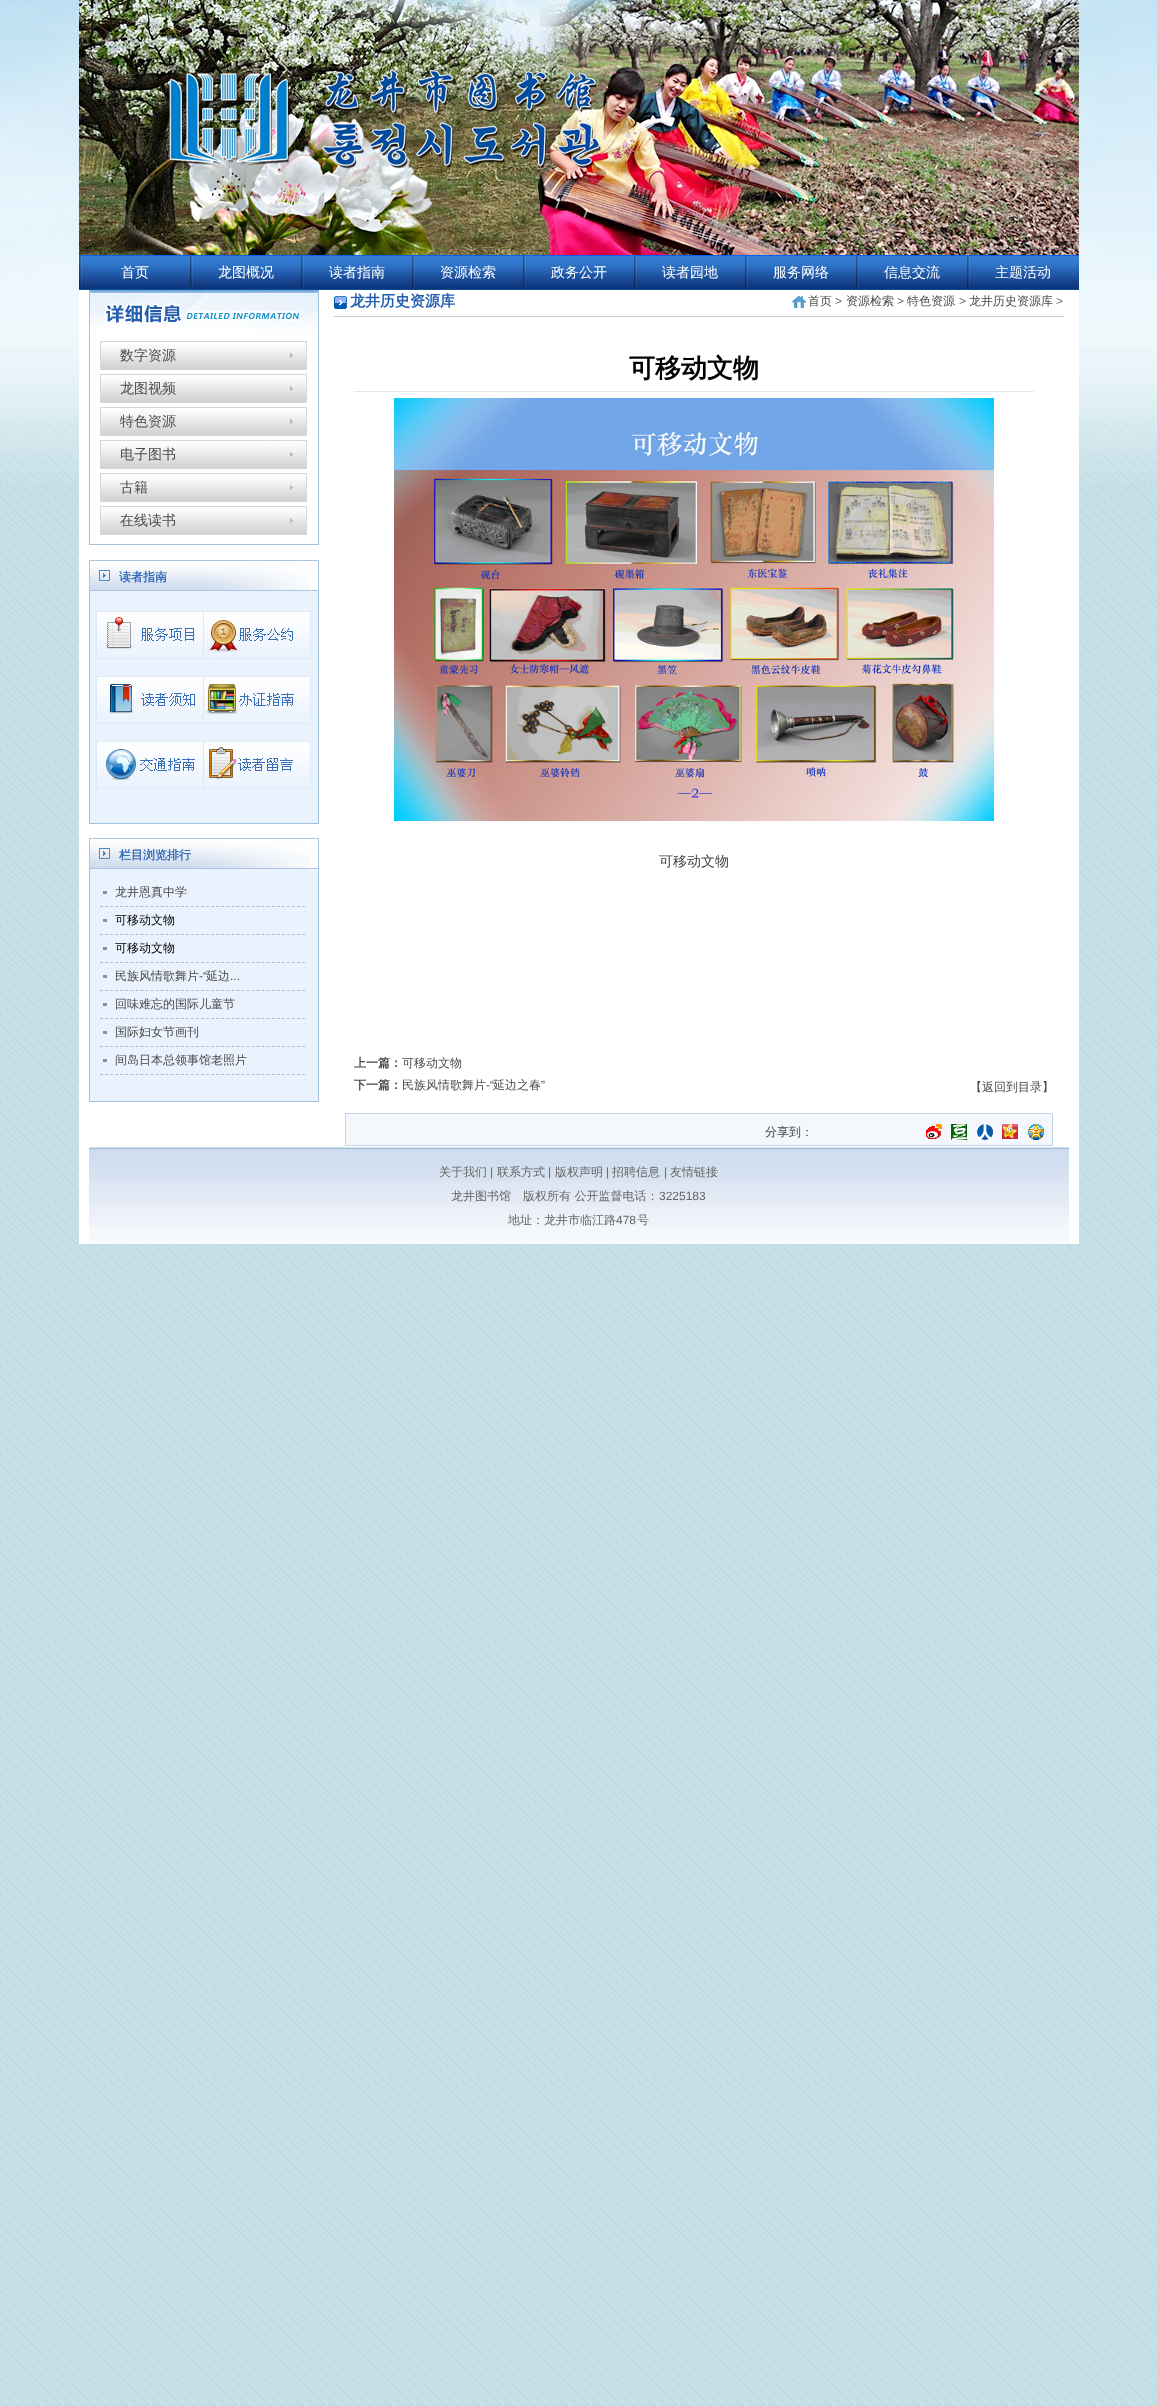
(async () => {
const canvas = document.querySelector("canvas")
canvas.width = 1157
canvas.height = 2406
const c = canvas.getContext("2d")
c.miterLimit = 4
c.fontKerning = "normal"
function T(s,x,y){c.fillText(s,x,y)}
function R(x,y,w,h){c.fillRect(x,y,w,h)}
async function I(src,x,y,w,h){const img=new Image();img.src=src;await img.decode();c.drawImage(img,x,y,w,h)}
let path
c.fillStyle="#fff"
R(0,0,1157,2406)
await I("1.png",0,290,1157,2116)
await I("2.png",0,0,1157,290)
await I("3.png",79,0,1000,255)
await I("4.png",169,69,432,100)
await I("5.png",79,255,1000,35)
await I("6.png",79,256,3,31)
c.font="500 14px WenQuanYi Zen Hei"
T("首页",121,277)
await I("6.png",190,256,3,31)
T("龙图概况",218,277)
await I("7.png",301,256,3,31)
T("读者指南",329,277)
await I("7.png",412,256,3,31)
T("资源检索",440,277)
await I("7.png",523,256,3,31)
T("政务公开",551,277)
await I("7.png",634,256,3,31)
T("读者园地",662,277)
await I("7.png",745,256,3,31)
T("服务网络",773,277)
await I("6.png",856,256,3,31)
T("信息交流",884,277)
await I("6.png",967,256,3,31)
T("主题活动",995,277)
R(79,290,1000,954)
await I("8.png",89,290,230,44)
c.fillStyle="#a3c2df"
R(318,334,1,211)
R(89,544,230,1)
R(89,334,1,211)
await I("9.png",100,341,207,29)
c.fillStyle="#4b4b4b"
T("数字资源",120,360)
await I("9.png",100,374,207,29)
T("龙图视频",120,393)
await I("9.png",100,407,207,29)
T("特色资源",120,426)
await I("9.png",100,440,207,29)
T("电子图书",120,459)
await I("9.png",100,473,207,29)
T("古籍",120,492)
await I("9.png",100,506,207,29)
T("在线读书",120,525)
await I("10.png",89,560,230,31)
c.font="bold 12px WenQuanYi Zen Hei"
c.fillStyle="#326bb6"
T("读者指南",119,581)
c.fillStyle="#eaf2fe"
R(90,591,228,232)
c.fillStyle="#a3c2df"
R(318,591,1,233)
R(89,823,230,1)
R(89,591,1,233)
await I("11.png",96,611,108,48)
await I("12.png",204,611,107,48)
await I("13.png",96,676,108,48)
await I("14.png",204,676,107,48)
await I("15.png",96,741,108,48)
await I("16.png",204,741,107,48)
await I("10.png",89,838,230,31)
c.fillStyle="#326bb6"
T("栏目浏览排行",119,859)
c.fillStyle="#eaf2fe"
R(90,869,228,232)
c.fillStyle="#a3c2df"
R(318,869,1,233)
R(89,1101,230,1)
R(89,869,1,233)
c.fillStyle="#7596b6"
R(103,891,4,3)
path = new Path2D("M100 906.5h205")
c.strokeStyle="#a3c2df"
c.setLineDash([3,2.05])
c.stroke(path)
c.font="500 12px WenQuanYi Zen Hei"
c.fillStyle="#4b4b4b"
T("龙井恩真中学",115,896)
c.fillStyle="#7596b6"
R(103,919,4,3)
path = new Path2D("M100 934.5h205")
c.stroke(path)
c.fillStyle="#000"
T("可移动文物",115,924)
c.fillStyle="#7596b6"
R(103,947,4,3)
path = new Path2D("M100 962.5h205")
c.stroke(path)
c.fillStyle="#000"
T("可移动文物",115,952)
c.fillStyle="#7596b6"
R(103,975,4,3)
path = new Path2D("M100 990.5h205")
c.stroke(path)
c.fillStyle="#4b4b4b"
T("民族风情歌舞片",115,980)
c.font="12px Liberation Sans"
T("-“",199,980)
c.font="500 12px WenQuanYi Zen Hei"
T("延边",206,980)
c.font="12px Liberation Sans"
T("...",230,980)
c.fillStyle="#7596b6"
R(103,1003,4,3)
path = new Path2D("M100 1018.5h205")
c.stroke(path)
c.font="500 12px WenQuanYi Zen Hei"
c.fillStyle="#4b4b4b"
T("回味难忘的国际儿童节",115,1008)
c.fillStyle="#7596b6"
R(103,1031,4,3)
path = new Path2D("M100 1046.5h205")
c.stroke(path)
c.fillStyle="#4b4b4b"
T("国际妇女节画刊",115,1036)
c.fillStyle="#7596b6"
R(103,1059,4,3)
path = new Path2D("M100 1074.5h205")
c.stroke(path)
c.fillStyle="#4b4b4b"
T("间岛日本总领事馆老照片",115,1064)
c.fillStyle="#ccc"
R(334,316,730,1)
await I("17.png",334,296,13,13)
c.font="bold 15px WenQuanYi Zen Hei"
c.fillStyle="#245eae"
T("龙井历史资源库",350,306)
await I("18.png",792,296,14,12)
c.font="500 12px WenQuanYi Zen Hei"
c.fillStyle="#4b4b4b"
T("首页",808,305)
c.font="12px Liberation Sans"
c.fillStyle="#666"
T(">",835,305)
c.font="500 12px WenQuanYi Zen Hei"
c.fillStyle="#4b4b4b"
T("资源检索",846,305)
c.font="12px Liberation Sans"
c.fillStyle="#666"
T(">",897,305)
c.font="500 12px WenQuanYi Zen Hei"
c.fillStyle="#4b4b4b"
T("特色资源",907,305)
c.font="12px Liberation Sans"
c.fillStyle="#666"
T(">",959,305)
c.font="500 12px WenQuanYi Zen Hei"
c.fillStyle="#4b4b4b"
T("龙井历史资源库",969,305)
c.font="12px Liberation Sans"
c.fillStyle="#666"
T(">",1056,305)
c.fillStyle="#e5e5e5"
R(354,391,680,1)
c.font="bold 26px WenQuanYi Zen Hei"
c.fillStyle="#000"
T("可移动文物",629,377)
await I("19.png",394,398,600,423)
c.font="500 14px WenQuanYi Zen Hei"
c.fillStyle="#444"
T("可移动文物",659,866)
c.font="bold 12px WenQuanYi Zen Hei"
T("上一篇：",354,1067)
c.font="500 12px WenQuanYi Zen Hei"
c.fillStyle="#4b4b4b"
T("可移动文物",402,1067)
c.font="bold 12px WenQuanYi Zen Hei"
c.fillStyle="#444"
T("下一篇：",354,1089)
c.font="500 12px WenQuanYi Zen Hei"
c.fillStyle="#4b4b4b"
T("民族风情歌舞片",402,1089)
c.font="12px Liberation Sans"
T("-“",486,1089)
c.font="500 12px WenQuanYi Zen Hei"
T("延边之春",493,1089)
c.font="12px Liberation Sans"
T("”",541,1089)
c.font="500 12px WenQuanYi Zen Hei"
T("【返回到目录】",970,1091)
c.fillStyle="#f4f8fd"
c.beginPath()
c.rect(345.5,1113.5,707,32)
c.fill()
c.strokeStyle="#c3d4e7"
c.setLineDash([])
c.stroke()
c.fillStyle="#444"
T("分享到：",765,1136)
await I("20.png",926,1124,16,15)
await I("21.png",951,1124,16,16)
await I("22.png",977,1124,16,16)
await I("23.png",1002,1124,16,15)
await I("24.png",1028,1124,16,16)
await I("25.png",89,1148,980,96)
c.fillStyle="#dbe7ed"
R(89,1147,980,1)
c.fillStyle="#666"
T("关于我们",439,1176)
c.font="12px Liberation Sans"
T("|",490,1176)
c.font="500 12px WenQuanYi Zen Hei"
T("联系方式",497,1176)
c.font="12px Liberation Sans"
T("|",548,1176)
c.font="500 12px WenQuanYi Zen Hei"
T("版权声明",555,1176)
c.font="12px Liberation Sans"
T("|",606,1176)
c.font="500 12px WenQuanYi Zen Hei"
T("招聘信息",612,1176)
c.font="12px Liberation Sans"
T("|",664,1176)
c.font="500 12px WenQuanYi Zen Hei"
T("友情链接",670,1176)
T("龙井图书馆　版权所有 公开监督电话：",451,1200)
c.font="12px Liberation Sans"
T("3225183",659,1200)
c.font="500 12px WenQuanYi Zen Hei"
T("地址：龙井市临江路",508,1224)
c.font="12px Liberation Sans"
T("478",616,1224)
c.font="500 12px WenQuanYi Zen Hei"
T("号",637,1224)
})()
